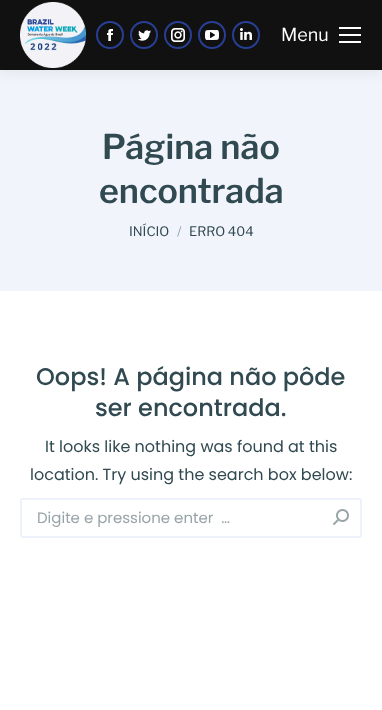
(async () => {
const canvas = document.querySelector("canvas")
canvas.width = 382
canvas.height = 710
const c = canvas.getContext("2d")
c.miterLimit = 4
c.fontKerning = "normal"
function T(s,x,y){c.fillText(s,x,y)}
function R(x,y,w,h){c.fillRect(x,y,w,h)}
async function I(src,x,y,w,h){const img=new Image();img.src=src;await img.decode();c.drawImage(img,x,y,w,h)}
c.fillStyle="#fff"
R(0,0,382,710)
c.fillStyle="#f1f4fa"
R(0,70,382,221)
c.fillStyle="#00000012"
c.filter="blur(7.5px)"
c.beginPath()
c.rect(-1,-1,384,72)
c.fill()
c.filter="none"
c.fillStyle="#111"
R(0,0,382,70)
await I("1.png",20,2,66,66)
c.beginPath()
c.arc(110,35,13,0,7)
c.strokeStyle="#283f96"
c.lineWidth=2
c.stroke()
await I("2.png",107,29,6,12)
c.beginPath()
c.arc(144,35,13,0,7)
c.stroke()
await I("3.png",138,30,13,11)
c.beginPath()
c.arc(178,35,13,0,7)
c.stroke()
await I("4.png",171,28,14,14)
c.beginPath()
c.arc(212,35,13,0,7)
c.stroke()
await I("5.png",205,30,14,10)
c.beginPath()
c.arc(246,35,13,0,7)
c.stroke()
await I("6.png",240,28,12,12)
c.font="18px Libre Franklin"
c.fillStyle="#fff"
T("Menu",281,41)
R(339,27,22,2)
R(339,34,22,2)
R(339,41,22,2)
c.font="600 34px Libre Franklin"
c.fillStyle="#314951"
T("Página não",102,159)
T("encontrada",99,203)
c.font="13px Libre Franklin"
T("INÍCIO",129,236)
c.fillStyle="#919fa6"
T("/",177,236)
c.fillStyle="#314951"
T("ERRO 404",189,236)
c.font="500 24px Poppins"
T("Oops! A página não pôde",36,385)
T("ser encontrada.",95,416)
c.font="16px Poppins"
T("It looks like nothing was found at this",45,452)
T("location. Try using the search box below:",30,480)
c.beginPath()
c.roundRect(21,499,340,38,2)
c.strokeStyle="#ecf1fb"
c.stroke()
c.font="15px Poppins"
c.fillStyle="#98a4a8"
T("Digite e pressione enter  …",37,523)
await I("7.png",333,509,16,16)
})()
